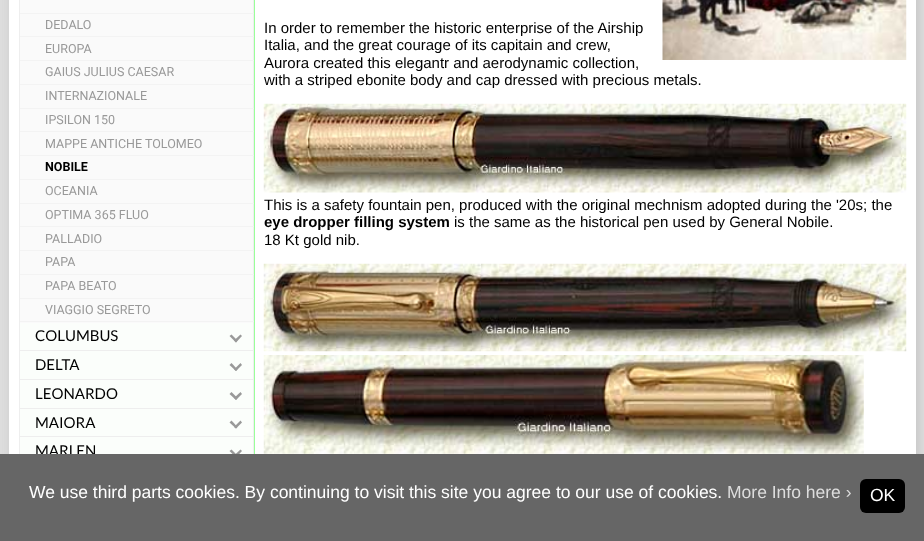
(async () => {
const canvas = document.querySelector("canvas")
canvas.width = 924
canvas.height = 541
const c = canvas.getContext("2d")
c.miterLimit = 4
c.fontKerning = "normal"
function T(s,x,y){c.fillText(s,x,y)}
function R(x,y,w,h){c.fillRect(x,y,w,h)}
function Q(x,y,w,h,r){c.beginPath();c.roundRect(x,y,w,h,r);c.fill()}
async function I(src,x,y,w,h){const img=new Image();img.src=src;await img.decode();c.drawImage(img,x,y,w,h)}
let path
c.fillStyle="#ddd"
R(0,0,924,541)
c.fillStyle="#c6c6c6"
c.filter="blur(5px)"
c.beginPath()
c.rect(11,-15,908,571)
c.fill()
c.filter="none"
c.fillStyle="#fff"
R(9,0,907,454)
c.fillStyle="#fafafa"
R(20,0,233,13)
c.fillStyle="#eee"
R(253,0,1,454)
c.fillStyle="#f3f3f3"
R(19,13,235,1)
c.fillStyle="#eee"
R(19,0,1,14)
c.fillStyle="#fafafa"
R(20,14,233,46)
c.fillStyle="#f3f3f3"
R(19,36,235,1)
c.fillStyle="#eee"
R(19,14,1,24)
c.font="12.5px Roboto"
c.fillStyle="#999"
T("DEDALO",45,29)
c.fillStyle="#f3f3f3"
R(19,60,235,1)
c.fillStyle="#eee"
R(19,38,1,23)
c.fillStyle="#999"
T("EUROPA",45,53)
c.fillStyle="#fafafa"
R(20,61,233,23)
c.fillStyle="#f3f3f3"
R(19,84,235,1)
c.fillStyle="#eee"
R(19,61,1,24)
c.fillStyle="#999"
T("GAIUS JULIUS CAESAR",45,76)
c.fillStyle="#fafafa"
R(20,85,233,23)
c.fillStyle="#f3f3f3"
R(19,108,235,1)
c.fillStyle="#eee"
R(19,85,1,24)
c.fillStyle="#999"
T("INTERNAZIONALE",45,100)
c.fillStyle="#fafafa"
R(20,109,233,46)
c.fillStyle="#f3f3f3"
R(19,131,235,1)
c.fillStyle="#eee"
R(19,109,1,24)
c.fillStyle="#999"
T("IPSILON 150",45,124)
c.fillStyle="#f3f3f3"
R(19,155,235,1)
c.fillStyle="#eee"
R(19,133,1,23)
c.fillStyle="#999"
T("MAPPE ANTICHE TOLOMEO",45,148)
c.fillStyle="#fafafa"
R(20,156,233,23)
c.fillStyle="#f3f3f3"
R(19,179,235,1)
c.fillStyle="#eee"
R(19,156,1,24)
c.font="bold 12.5px Roboto"
c.fillStyle="#000"
T("NOBILE",45,171)
c.fillStyle="#fafafa"
R(20,180,233,23)
c.fillStyle="#f3f3f3"
R(19,203,235,1)
c.fillStyle="#eee"
R(19,180,1,24)
c.font="12.5px Roboto"
c.fillStyle="#999"
T("OCEANIA",45,195)
c.fillStyle="#fafafa"
R(20,204,233,46)
c.fillStyle="#f3f3f3"
R(19,226,235,1)
c.fillStyle="#eee"
R(19,204,1,24)
c.fillStyle="#999"
T("OPTIMA 365 FLUO",45,219)
c.fillStyle="#f3f3f3"
R(19,250,235,1)
c.fillStyle="#eee"
R(19,228,1,23)
c.fillStyle="#999"
T("PALLADIO",45,243)
c.fillStyle="#fafafa"
R(20,251,233,23)
c.fillStyle="#f3f3f3"
R(19,274,235,1)
c.fillStyle="#eee"
R(19,251,1,24)
c.fillStyle="#999"
T("PAPA",45,266)
c.fillStyle="#fafafa"
R(20,275,233,23)
c.fillStyle="#f3f3f3"
R(19,298,235,1)
c.fillStyle="#eee"
R(19,275,1,24)
c.fillStyle="#999"
T("PAPA BEATO",45,290)
c.fillStyle="#fafafa"
R(20,299,233,24)
c.fillStyle="#f3f3f3"
R(19,321,235,1)
c.fillStyle="#eee"
R(19,299,1,24)
c.fillStyle="#999"
T("VIAGGIO SEGRETO",45,314)
c.fillStyle="#fbfefb"
R(20,323,233,27)
c.fillStyle="#eee"
R(19,350,235,1)
R(19,323,1,28)
c.font="15px Lato"
c.fillStyle="#000"
T("COLUMBUS",35,341)
c.fillStyle="#999"
path = new Path2D("M236 342.5l-6.5-6.5l2-1.5l6 6z")
c.fill(path)
path = new Path2D("M236 342.5l-2-2l6.5-6l1.5 1.5z")
c.fill(path)
c.fillStyle="#fbfefb"
R(20,351,233,28)
c.fillStyle="#eee"
R(19,379,235,1)
R(19,351,1,29)
c.fillStyle="#000"
T("DELTA",35,370)
c.fillStyle="#999"
path = new Path2D("M236 371l-6.5-6l2-2l6 6.5z")
c.fill(path)
path = new Path2D("M236 371l-2-1.5l6.5-6.5l1.5 2z")
c.fill(path)
c.fillStyle="#fbfefb"
R(20,380,233,28)
c.fillStyle="#eee"
R(19,408,235,1)
R(19,380,1,29)
c.fillStyle="#000"
T("LEONARDO",35,399)
c.fillStyle="#999"
path = new Path2D("M236 400l-6.5-6l2-2l6 6z")
c.fill(path)
path = new Path2D("M236 400l-2-2l6.5-6l1.5 2z")
c.fill(path)
c.fillStyle="#fbfefb"
R(20,409,233,45)
c.fillStyle="#eee"
R(19,436,235,1)
R(19,409,1,45)
c.fillStyle="#000"
T("MAIORA",35,428)
c.fillStyle="#999"
path = new Path2D("M236 428.5l-6.5-6l2-2l6 6.5z")
c.fill(path)
path = new Path2D("M236 428.5l-2-1.5l6.5-6.5l1.5 2z")
c.fill(path)
c.fillStyle="#000"
T("MARLEN",35,456)
c.fillStyle="#999"
path = new Path2D("M236 457.5l-6.5-6.5l2-1.5l6 6z")
c.fill(path)
path = new Path2D("M236 457.5l-2-2l6.5-6l1.5 1.5z")
c.fill(path)
c.fillStyle="#9f9"
R(254,0,1,454)
c.font="15px Liberation Sans"
c.fillStyle="#000"
T("In order to remember the historic enterprise of the Airship",264,33)
T("Italia, and the great courage of its capitain and crew,",264,50)
T("Aurora created this elegantr and aerodynamic collection,",264,68)
T("with a striped ebonite body and cap dressed with precious metals.",264,85)
await I("1.png",662,0,245,60)
await I("2.png",263,103,644,90)
T("This is a safety fountain pen, produced with the original mechnism adopted during the '20s; the",264,210)
c.font="bold 15px Liberation Sans"
T("eye dropper filling system",264,227)
c.font="15px Liberation Sans"
T("is the same as the historical pen used by General Nobile.",454,227)
T("18 Kt gold nib.",264,245)
await I("3.png",263,263,644,89)
await I("4.png",263,355,601,99)
c.fillStyle="#666"
R(0,454,924,87)
c.font="17.5px Liberation Sans"
c.fillStyle="#fff"
T("We use third parts cookies. By continuing to visit this site you agree to our use of cookies.",29,498)
c.fillStyle="#ddd"
T("More Info here ›",727,498)
c.fillStyle="#000"
Q(860,479,45,34,6)
c.fillStyle="#fff"
T("OK",870,501)
})()
